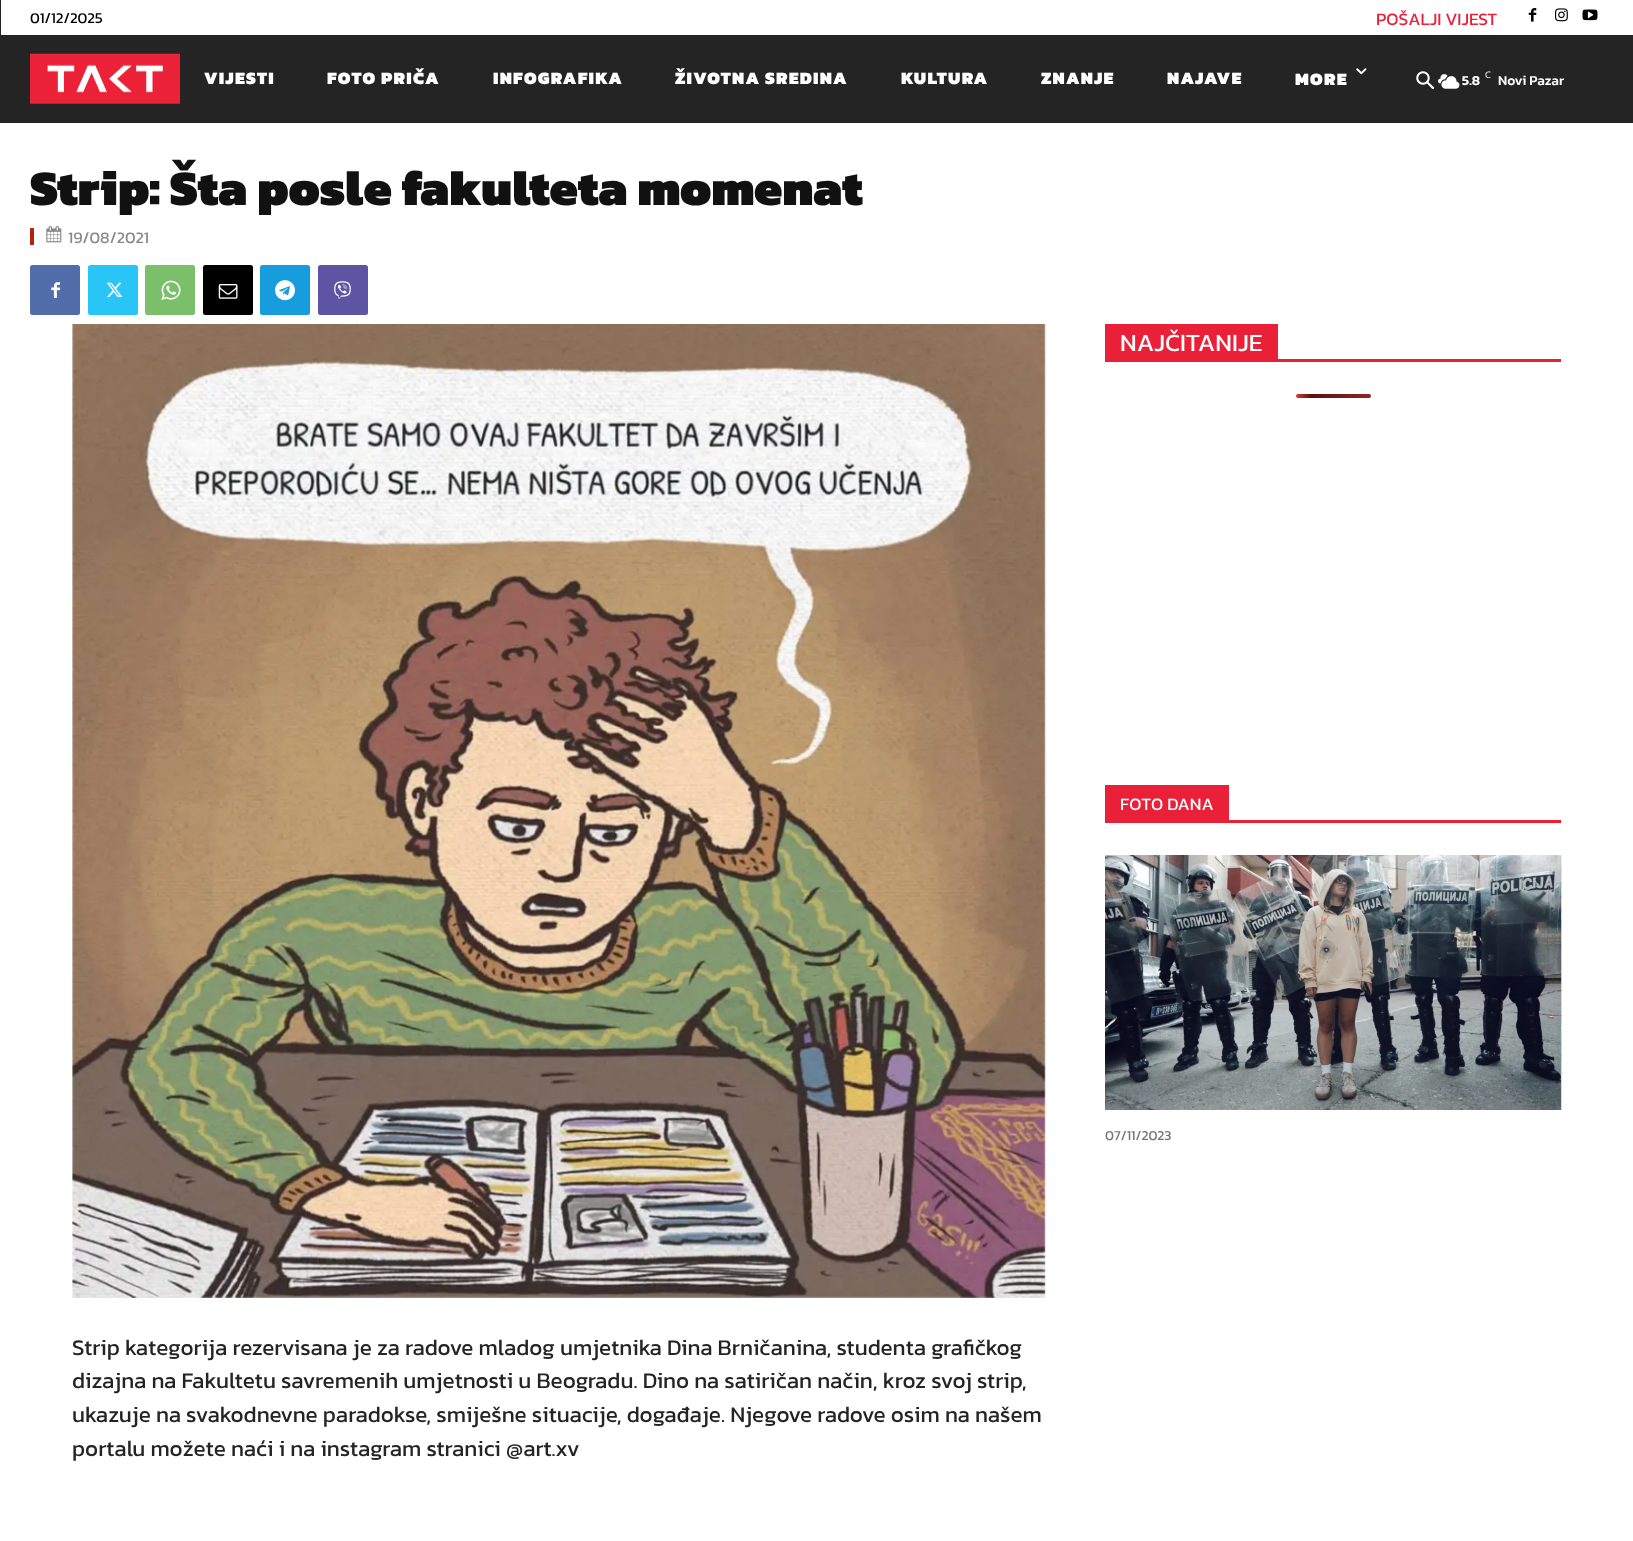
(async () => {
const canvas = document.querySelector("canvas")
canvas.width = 1633
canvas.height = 1541
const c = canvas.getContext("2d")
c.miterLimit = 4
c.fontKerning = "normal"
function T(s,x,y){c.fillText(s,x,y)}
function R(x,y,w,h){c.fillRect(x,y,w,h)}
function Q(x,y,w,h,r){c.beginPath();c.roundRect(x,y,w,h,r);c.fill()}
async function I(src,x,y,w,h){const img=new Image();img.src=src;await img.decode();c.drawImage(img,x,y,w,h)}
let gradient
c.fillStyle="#fff"
R(0,0,1633,1541)
c.fillStyle="#242424"
R(0,0,1633,123)
c.fillStyle="#fff"
R(1,0,1632,35)
c.font="15px Kanit"
c.fillStyle="#000"
T("01/12/2025",30,23)
c.font="17.5px Kanit"
c.fillStyle="#ea2039"
T("POŠALJI VIJEST",1376,25)
await I("1.png",1528,8,9,14)
await I("2.png",1555,8,13,14)
await I("3.png",1582,9,16,12)
await I("4.png",30,53,150,51)
c.letterSpacing="1.25px"
c.font="900 17.5px Kanit"
c.fillStyle="#fff"
T("VIJESTI",204,84)
T("FOTO PRIČA",327,84)
T("INFOGRAFIKA",493,84)
T("ŽIVOTNA SREDINA",675,84)
T("KULTURA",901,84)
T("ZNANJE",1041,84)
T("NAJAVE",1167,84)
await I("5.png",1356,68,11,7)
T("MORE",1295,85)
await I("6.png",1416,71,19,18)
await I("7.png",1438,74,22,15)
c.letterSpacing="0px"
c.font="300 10px Kanit"
T("C",1485,78)
c.font="600 13.75px Kanit"
T("5.8",1462,85)
c.font="500 13.75px Kanit"
T("Novi Pazar",1498,85)
c.font="900 50px Kanit"
c.fillStyle="#111"
T("Strip: Šta posle fakulteta momenat",30,205)
c.fillStyle="#b22505"
R(30,228,4,17)
await I("8.png",46,226,16,17)
c.font="16.25px Kanit"
c.fillStyle="#898989"
T("19/08/2021",68,243)
c.fillStyle="#516eab"
Q(30,265,50,50,2.5)
await I("9.png",51,282,9,16)
c.fillStyle="#29c5f6"
Q(88,265,50,50,2.5)
await I("10.png",106,282,17,15)
c.fillStyle="#7bbf6a"
Q(145,265,50,50,2.5)
await I("11.png",161,280,20,20)
c.fillStyle="#000"
Q(203,265,50,50,2.5)
await I("12.png",218,284,20,15)
c.fillStyle="#179cde"
Q(260,265,50,50,2.5)
await I("13.png",275,280,20,21)
c.fillStyle="#5d54a4"
Q(318,265,50,50,2.5)
await I("14.png",334,281,17,18)
c.fillStyle="#ea2039"
R(1105,359,456,3)
R(1105,324,173,35)
c.font="25px Kanit"
c.fillStyle="#fff"
T("NAJČITANIJE",1120,351)
gradient = c.createLinearGradient(1296,396,1446,396)
gradient.addColorStop(0,"#dd3737")
gradient.addColorStop(.1,"#571313")
gradient.addColorStop(1,"#dd3737")
c.fillStyle = gradient
Q(1296,394,75,4,2)
c.fillStyle="#ea2039"
R(1105,820,456,3)
R(1105,785,124,35)
c.font="17.5px Kanit"
c.fillStyle="#fff"
T("FOTO DANA",1120,810)
await I("15.png",1105,855,457,255)
c.font="13.75px Kanit"
c.fillStyle="#767676"
T("07/11/2023",1105,1140)
await I("16.png",72,324,974,974)
c.font="22.5px Kanit"
c.fillStyle="#242424"
T("Strip kategorija rezervisana je za radove mladog umjetnika Dina Brničanina, studenta grafičkog",72,1355)
T("dizajna na Fakultetu savremenih umjetnosti u Beogradu. Dino na satiričan način, kroz svoj strip,",72,1388)
T("ukazuje na svakodnevne paradokse, smiješne situacije, događaje. Njegove radove osim na našem",72,1422)
T("portalu možete naći i na instagram stranici @art.xv",72,1456)
})()
